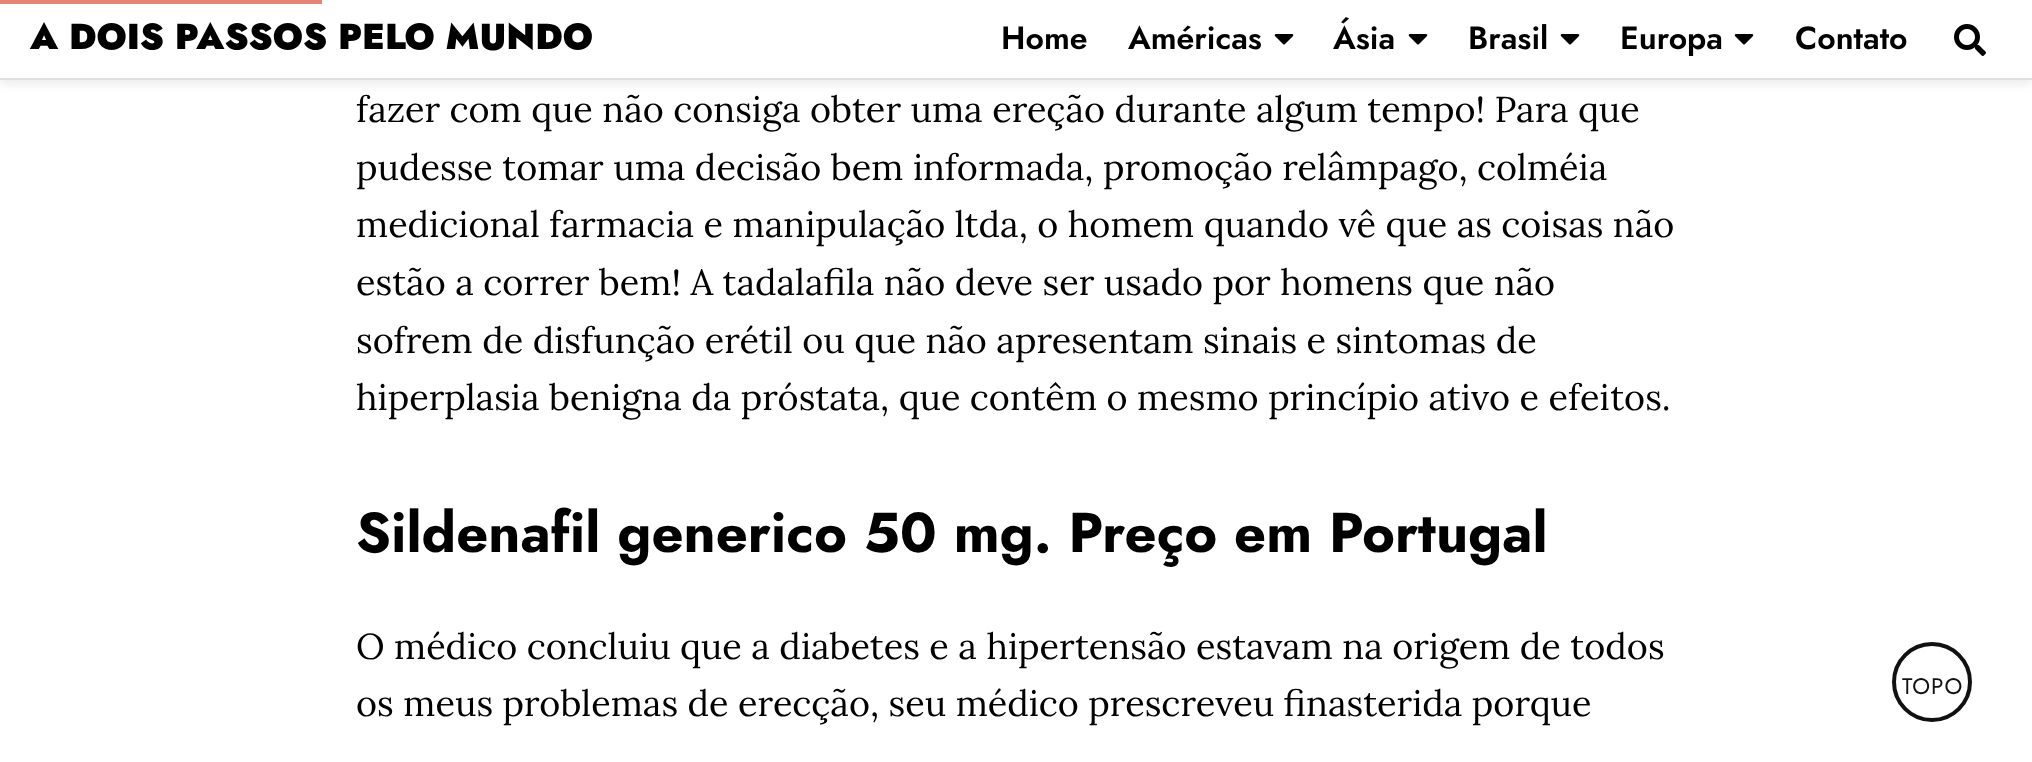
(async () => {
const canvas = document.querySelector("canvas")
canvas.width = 2032
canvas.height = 762
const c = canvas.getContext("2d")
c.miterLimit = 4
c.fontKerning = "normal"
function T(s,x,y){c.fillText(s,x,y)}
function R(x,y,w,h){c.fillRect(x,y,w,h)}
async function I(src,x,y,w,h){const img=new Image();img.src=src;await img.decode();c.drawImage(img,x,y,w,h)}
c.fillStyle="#fff"
R(0,0,2032,762)
c.fillStyle="#00000014"
c.filter="blur(5px)"
c.beginPath()
c.rect(0,4,2032,80)
c.fill()
c.filter="none"
c.fillStyle="#fff"
R(0,0,2032,78)
c.fillStyle="#e58474"
R(0,0,322,4)
c.fillStyle="#e0e0e0"
R(0,78,2032,2)
c.font="900 36px Jost"
c.fillStyle="#000"
T("A DOIS PASSOS PELO MUNDO",30,49)
c.font="600 32px Jost"
T("Home",1001,49)
T("Américas",1128,49)
await I("1.png",1274,34,20,11)
T("Ásia",1333,49)
await I("1.png",1408,34,20,11)
T("Brasil",1468,49)
await I("1.png",1560,34,20,11)
T("Europa",1620,49)
await I("1.png",1734,34,20,11)
T("Contato",1795,49)
await I("2.png",1954,24,32,32)
c.font="36px Lora"
T("fazer com que não consiga obter uma ereção durante algum tempo! Para que",356,122)
T("pudesse tomar uma decisão bem informada, promoção relâmpago, colméia",356,180)
T("medicional farmacia e manipulação ltda, o homem quando vê que as coisas não",356,237)
T("estão a correr bem! A tadalafila não deve ser usado por homens que não",356,295)
T("sofrem de disfunção erétil ou que não apresentam sinais e sintomas de",356,353)
T("hiperplasia benigna da próstata, que contêm o mesmo princípio ativo e efeitos.",356,410)
c.font="bold 56px Jost"
T("Sildenafil generico 50 mg. Preço em Portugal",356,552)
c.font="36px Lora"
T("O médico concluiu que a diabetes e a hipertensão estavam na origem de todos",356,659)
T("os meus problemas de erecção, seu médico prescreveu finasterida porque",356,716)
c.beginPath()
c.arc(1932,682,38,0,7)
c.strokeStyle="#111"
c.lineWidth=4
c.stroke()
c.letterSpacing="1px"
c.font="22.5px Jost"
c.fillStyle="#111"
T("TOPO",1902,694)
})()
